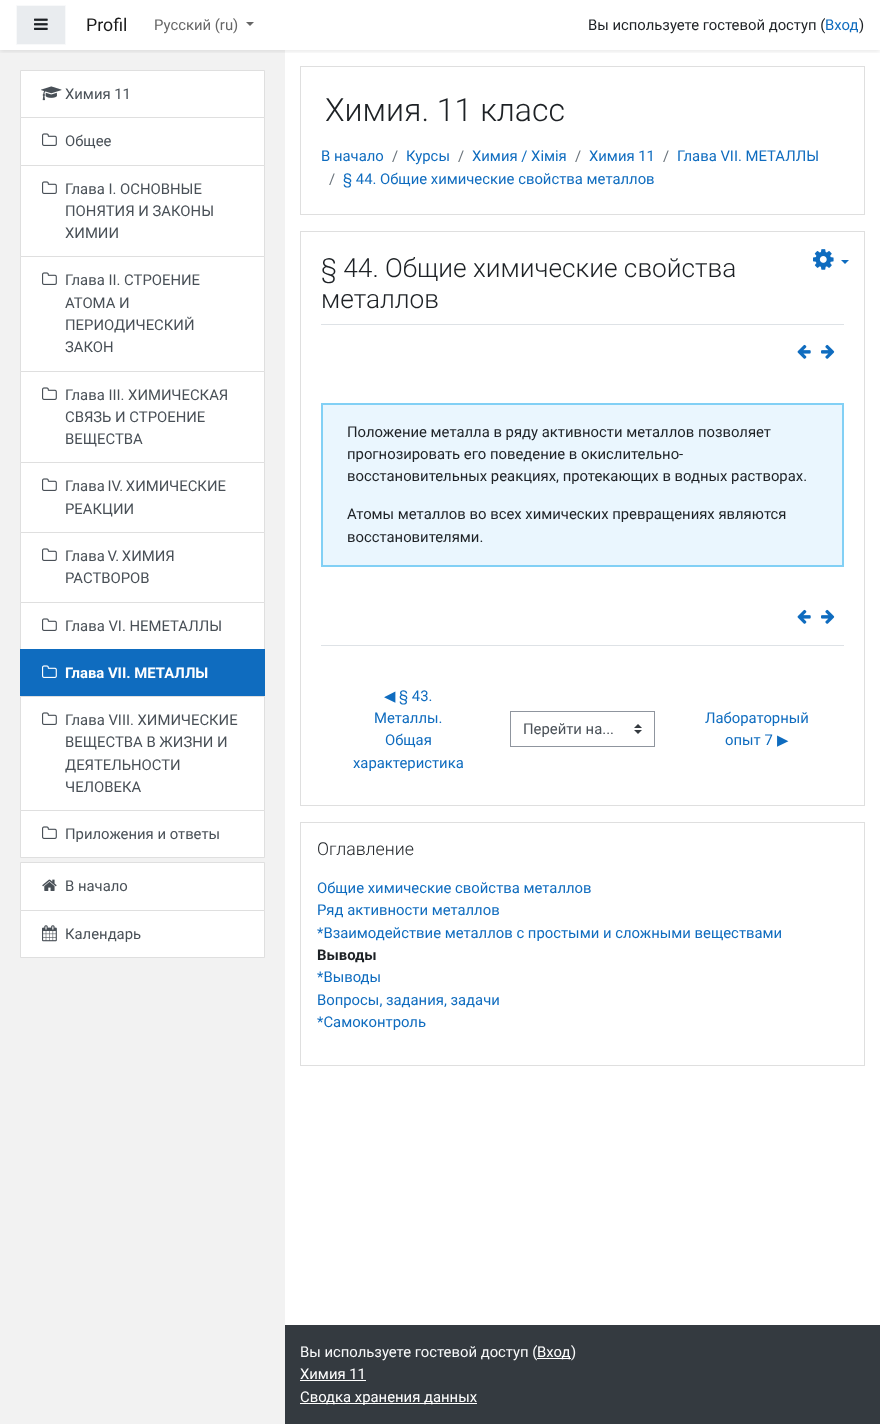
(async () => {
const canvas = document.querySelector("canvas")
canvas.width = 880
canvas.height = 1424
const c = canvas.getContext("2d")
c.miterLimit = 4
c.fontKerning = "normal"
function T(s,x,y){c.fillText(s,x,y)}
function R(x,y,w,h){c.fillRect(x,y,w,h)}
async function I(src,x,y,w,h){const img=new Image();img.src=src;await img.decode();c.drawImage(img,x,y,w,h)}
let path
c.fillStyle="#fff"
R(0,0,880,1424)
c.fillStyle="#f2f2f2"
R(0,50,285,1374)
c.save()
c.beginPath()
c.rect(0,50,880,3)
c.clip()
c.fillStyle="#00000014"
c.filter="blur(2px)"
c.beginPath()
c.rect(0,2,880,50)
c.fill()
c.filter="none"
c.restore()
c.fillStyle="#e9ecef"
c.beginPath()
c.rect(16.5,5.5,49,39)
c.fill()
c.strokeStyle="#f8f9fa"
c.stroke()
await I("1.png",34,18,14,12)
c.font="17.75px Roboto"
c.fillStyle="#1a1a1a"
T("Profil",86,31)
c.font="14.85px Roboto"
c.fillStyle="#666"
T("Русский (ru)",154,30)
path = new Path2D("M246 22h8l-4 4z")
c.fill(path)
c.fillStyle="#1d2125"
T("Вы используете гостевой доступ (",588,30)
c.fillStyle="#0f6cbf"
T("Вход",825,30)
c.fillStyle="#1d2125"
T(")",859,30)
c.fillStyle="#fff"
c.beginPath()
c.rect(20.5,70.5,244,47)
c.fill()
c.strokeStyle="#dfdfdf"
c.stroke()
await I("2.png",41,86,21,15)
c.fillStyle="#495057"
T("Химия 11",65,99)
c.fillStyle="#fff"
c.beginPath()
c.rect(20.5,117.5,244,48)
c.fill()
c.stroke()
await I("3.png",42,133,15,13)
c.fillStyle="#495057"
T("Общее",65,146)
c.fillStyle="#fff"
c.beginPath()
c.rect(20.5,165.5,244,91)
c.fill()
c.stroke()
await I("3.png",42,181,15,13)
c.fillStyle="#495057"
T("Глава I. ОСНОВНЫЕ",65,194)
T("ПОНЯТИЯ И ЗАКОНЫ",65,216)
T("ХИМИИ",65,238)
c.fillStyle="#fff"
c.beginPath()
c.rect(20.5,256.5,244,115)
c.fill()
c.stroke()
await I("3.png",42,272,15,13)
c.fillStyle="#495057"
T("Глава II. СТРОЕНИЕ",65,285)
T("АТОМА И",65,308)
T("ПЕРИОДИЧЕСКИЙ",65,330)
T("ЗАКОН",65,352)
c.fillStyle="#fff"
c.beginPath()
c.rect(20.5,371.5,244,91)
c.fill()
c.stroke()
await I("3.png",42,387,15,13)
c.fillStyle="#495057"
T("Глава III. ХИМИЧЕСКАЯ",65,400)
T("СВЯЗЬ И СТРОЕНИЕ",65,422)
T("ВЕЩЕСТВА",65,444)
c.fillStyle="#fff"
c.beginPath()
c.rect(20.5,462.5,244,70)
c.fill()
c.stroke()
await I("3.png",42,478,15,13)
c.wordSpacing="-1px"
c.fillStyle="#495057"
T("Глава IV. ХИМИЧЕСКИЕ",65,491)
c.wordSpacing="0px"
T("РЕАКЦИИ",65,514)
c.fillStyle="#fff"
c.beginPath()
c.rect(20.5,532.5,244,70)
c.fill()
c.stroke()
await I("3.png",42,548,15,13)
c.wordSpacing="-1px"
c.fillStyle="#495057"
T("Глава V. ХИМИЯ",65,561)
c.wordSpacing="0px"
T("РАСТВОРОВ",65,583)
c.fillStyle="#fff"
c.beginPath()
c.rect(20.5,602.5,244,47)
c.fill()
c.stroke()
await I("3.png",42,618,15,13)
c.fillStyle="#495057"
T("Глава VI. НЕМЕТАЛЛЫ",65,631)
c.fillStyle="#0f6cbf"
R(20,649,245,47)
await I("4.png",42,665,15,13)
c.font="bold 14.85px Roboto"
c.fillStyle="#fff"
T("Глава VII. МЕТАЛЛЫ",65,678)
c.beginPath()
c.rect(20.5,696.5,244,114)
c.fill()
c.stroke()
await I("3.png",42,712,15,13)
c.font="14.85px Roboto"
c.fillStyle="#495057"
T("Глава VIII. ХИМИЧЕСКИЕ",65,725)
T("ВЕЩЕСТВА В ЖИЗНИ И",65,747)
T("ДЕЯТЕЛЬНОСТИ",65,770)
T("ЧЕЛОВЕКА",65,792)
c.fillStyle="#fff"
c.beginPath()
c.rect(20.5,810.5,244,47)
c.fill()
c.stroke()
await I("3.png",42,826,15,13)
c.fillStyle="#495057"
T("Приложения и ответы",65,839)
c.fillStyle="#fff"
c.beginPath()
c.rect(20.5,862.5,244,48)
c.fill()
c.stroke()
await I("5.png",42,879,15,12)
c.fillStyle="#495057"
T("В начало",65,891)
c.fillStyle="#fff"
c.beginPath()
c.rect(20.5,910.5,244,47)
c.fill()
c.stroke()
await I("6.png",42,925,15,17)
c.fillStyle="#495057"
T("Календарь",65,939)
c.strokeRect(300.5,66.5,564,148)
c.font="300 32px Roboto"
c.fillStyle="#1d2125"
T("Химия. 11 класс",325,121)
c.font="14.85px Roboto"
c.fillStyle="#0f6cbf"
T("В начало",321,161)
c.fillStyle="#6a737b"
T("/",392,161)
c.fillStyle="#0f6cbf"
T("Курсы",406,161)
c.fillStyle="#6a737b"
T("/",458,161)
c.fillStyle="#0f6cbf"
T("Химия / Хімія",472,161)
c.fillStyle="#6a737b"
T("/",575,161)
c.fillStyle="#0f6cbf"
T("Химия 11",589,161)
c.fillStyle="#6a737b"
T("/",663,161)
c.fillStyle="#0f6cbf"
T("Глава VII. МЕТАЛЛЫ",677,161)
c.fillStyle="#6a737b"
T("/",329,184)
c.fillStyle="#0f6cbf"
T("§ 44. Общие химические свойства металлов",343,184)
c.strokeRect(300.5,231.5,564,574)
c.font="300 26.25px Roboto"
c.fillStyle="#1d2125"
T("§ 44. Общие химические свойства",321,277)
T("металлов",321,308)
c.fillStyle="#dee2e6"
R(321,324,523,1)
await I("7.png",797,344,14,15)
await I("8.png",821,344,14,15)
c.fillStyle="#eaf6fe"
c.beginPath()
c.rect(322,404,521,162)
c.fill()
c.strokeStyle="#82d0f5"
c.lineWidth=2
c.stroke()
c.font="14.85px Roboto"
c.fillStyle="#1d2125"
T("Положение металла в ряду активности металлов позволяет",347,437)
T("прогнозировать его поведение в окислительно-",347,459)
T("восстановительных реакциях, протекающих в водных растворах.",347,481)
T("Атомы металлов во всех химических превращениях являются",347,519)
T("восстановителями.",347,542)
c.fillStyle="#dee2e6"
R(321,645,523,1)
await I("7.png",797,609,14,15)
await I("8.png",821,609,14,15)
c.font="14.85px DejaVu Sans"
c.fillStyle="#0f6cbf"
T("◀︎",384,701)
c.font="14.85px Roboto"
T("§ 43.",399,701)
T("Металлы.",374,723)
T("Общая",385,745)
T("характеристика",353,768)
await I("9.png",634,724,8,10)
c.strokeStyle="#8f959e"
c.lineWidth=1
c.strokeRect(510.5,711.5,144,35)
c.fillStyle="#495057"
T("Перейти на...",523,734)
c.fillStyle="#0f6cbf"
T("Лабораторный",705,723)
T("опыт 7",725,745)
c.font="14.85px DejaVu Sans"
T("▶︎",777,745)
await I("10.png",813,249,21,21)
path = new Path2D("M841 260h8l-4 4z")
c.fill(path)
c.strokeStyle="#dfdfdf"
c.strokeRect(300.5,822.5,564,243)
c.font="300 17.75px Roboto"
c.fillStyle="#1d2125"
T("Оглавление",317,855)
c.font="14.85px Roboto"
c.fillStyle="#0f6cbf"
T("Общие химические свойства металлов",317,893)
T("Ряд активности металлов",317,915)
T("*Взаимодействие металлов с простыми и сложными веществами",317,938)
c.font="bold 14.85px Roboto"
c.fillStyle="#1d2125"
T("Выводы",317,960)
c.font="14.85px Roboto"
c.fillStyle="#0f6cbf"
T("*Выводы",317,982)
T("Вопросы, задания, задачи",317,1005)
T("*Самоконтроль",317,1027)
c.fillStyle="#343a40"
R(285,1325,595,99)
c.fillStyle="#f8f9fa"
T("Вы используете гостевой доступ (",300,1357)
c.fillStyle="#fff"
R(537,1358,34,1)
T("Вход",537,1357)
c.fillStyle="#f8f9fa"
T(")",571,1357)
c.fillStyle="#fff"
T("Химия 11",300,1379)
R(300,1380,66,1)
R(300,1403,177,1)
T("Сводка хранения данных",300,1402)
})()
